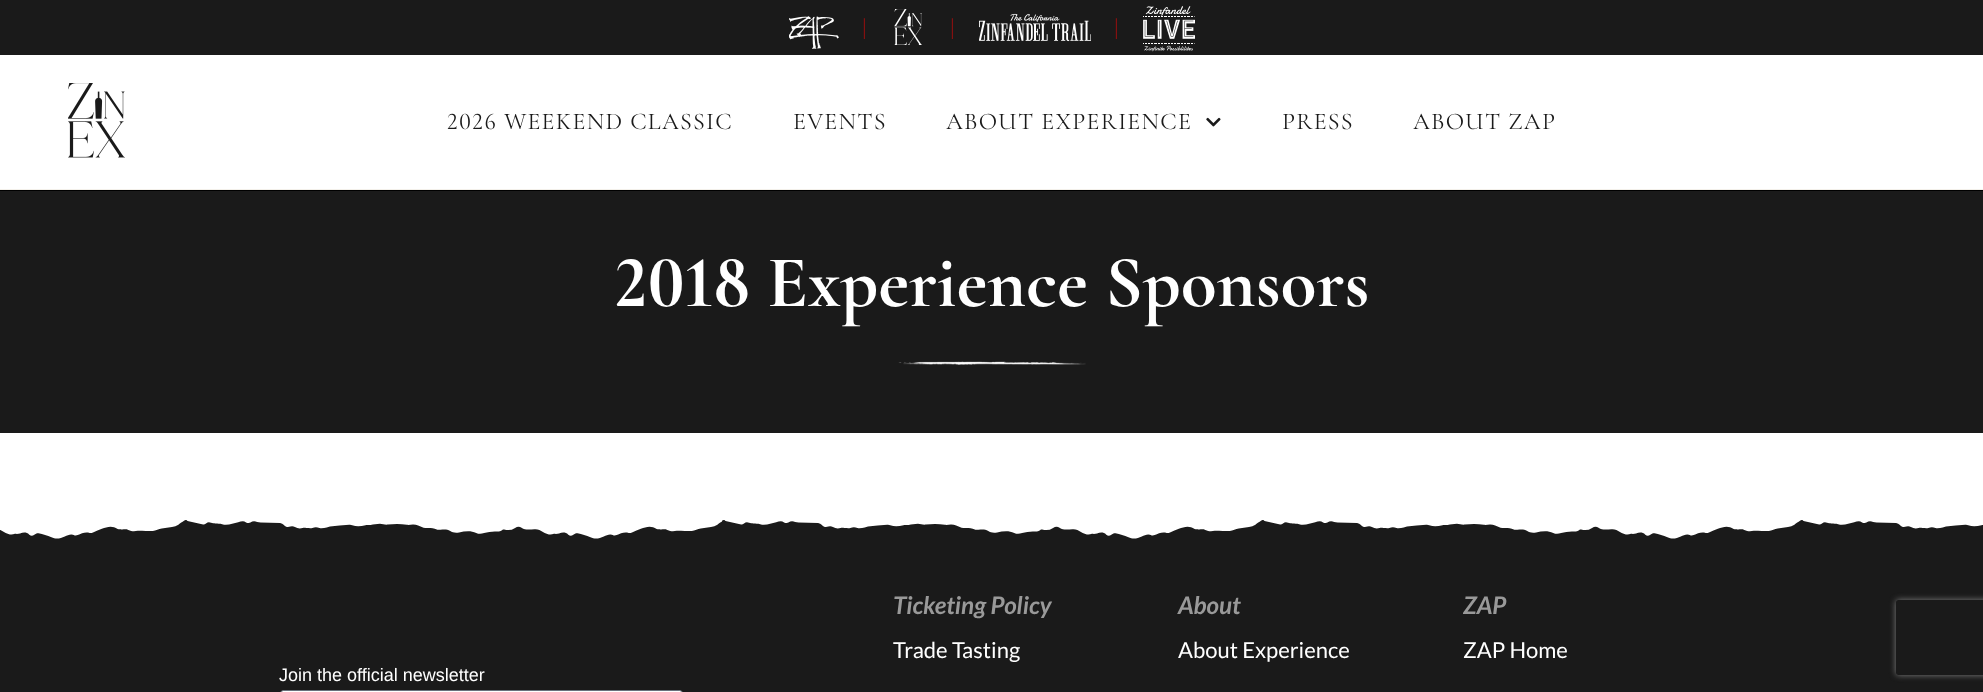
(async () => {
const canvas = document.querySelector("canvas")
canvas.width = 1983
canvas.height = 692
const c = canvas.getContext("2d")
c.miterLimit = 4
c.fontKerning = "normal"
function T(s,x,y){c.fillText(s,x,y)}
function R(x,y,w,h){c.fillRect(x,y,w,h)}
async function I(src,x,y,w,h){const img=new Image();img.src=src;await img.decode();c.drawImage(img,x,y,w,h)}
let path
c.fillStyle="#fff"
R(0,0,1983,692)
c.fillStyle="#1a1a1a"
R(0,0,1983,55)
await I("1.png",789,16,50,33)
c.font="300 22px Lato"
c.fillStyle="#b20e0e"
T("|",861,35)
await I("2.png",894,9,28,36)
T("|",949,35)
await I("3.png",979,13,112,29)
T("|",1113,35)
await I("4.png",1143,6,52,46)
c.fillStyle="#f3f0ea"
R(0,189,1983,1)
await I("5.png",68,83,57,75)
c.letterSpacing="1.25px"
c.font="300 24px 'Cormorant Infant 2'"
c.fillStyle="#1a1a1a"
T("2026 WEEKEND CLASSIC",447,129)
T("EVENTS",793,129)
T("ABOUT EXPERIENCE",946,129)
await I("6.png",1206,117,15,10)
T("PRESS",1282,129)
T("ABOUT ZAP",1413,129)
c.fillStyle="#000"
R(0,190,1983,1)
c.fillStyle="#1a1a1a"
R(0,191,1983,242)
c.letterSpacing="0px"
c.font="300 73.75px Cormorant Infant"
c.fillStyle="#fff"
T("2018 Experience Sponsors",615,306)
await I("7.png",898,361,188,4)
await I("8.png",0,520,1983,25)
c.fillStyle="#1a1a1a"
R(0,545,1983,147)
c.font="italic bold 24.25px Lato"
c.fillStyle="#999"
T("Ticketing Policy",893,614)
c.font="22px Lato"
c.fillStyle="#fff"
T("Trade Tasting",893,658)
c.font="italic bold 24.25px Lato"
c.fillStyle="#999"
T("About",1178,614)
c.font="22px Lato"
c.fillStyle="#fff"
T("About Experience",1178,658)
c.font="italic bold 24.25px Lato"
c.fillStyle="#999"
T("ZAP",1463,614)
c.font="22px Lato"
c.fillStyle="#fff"
T("ZAP Home",1463,658)
c.font="18px Liberation Sans"
T("Join the official newsletter",279,681)
c.beginPath()
c.roundRect(280.5,690.5,402,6,3.5)
c.fill()
c.strokeStyle="#69727d"
c.stroke()
c.save()
path = new Path2D("M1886 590h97v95h-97zm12.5 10h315c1.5 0 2.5 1 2.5 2.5v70c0 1.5-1 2.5-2.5 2.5h-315c-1.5 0-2.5-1-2.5-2.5v-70c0-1.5 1-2.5 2.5-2.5z")
c.clip(path,"evenodd")
c.fillStyle="#808080"
c.filter="blur(3px)"
c.beginPath()
c.roundRect(1896,600,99,75,2.5)
c.fill()
c.filter="none"
c.restore()
})()
